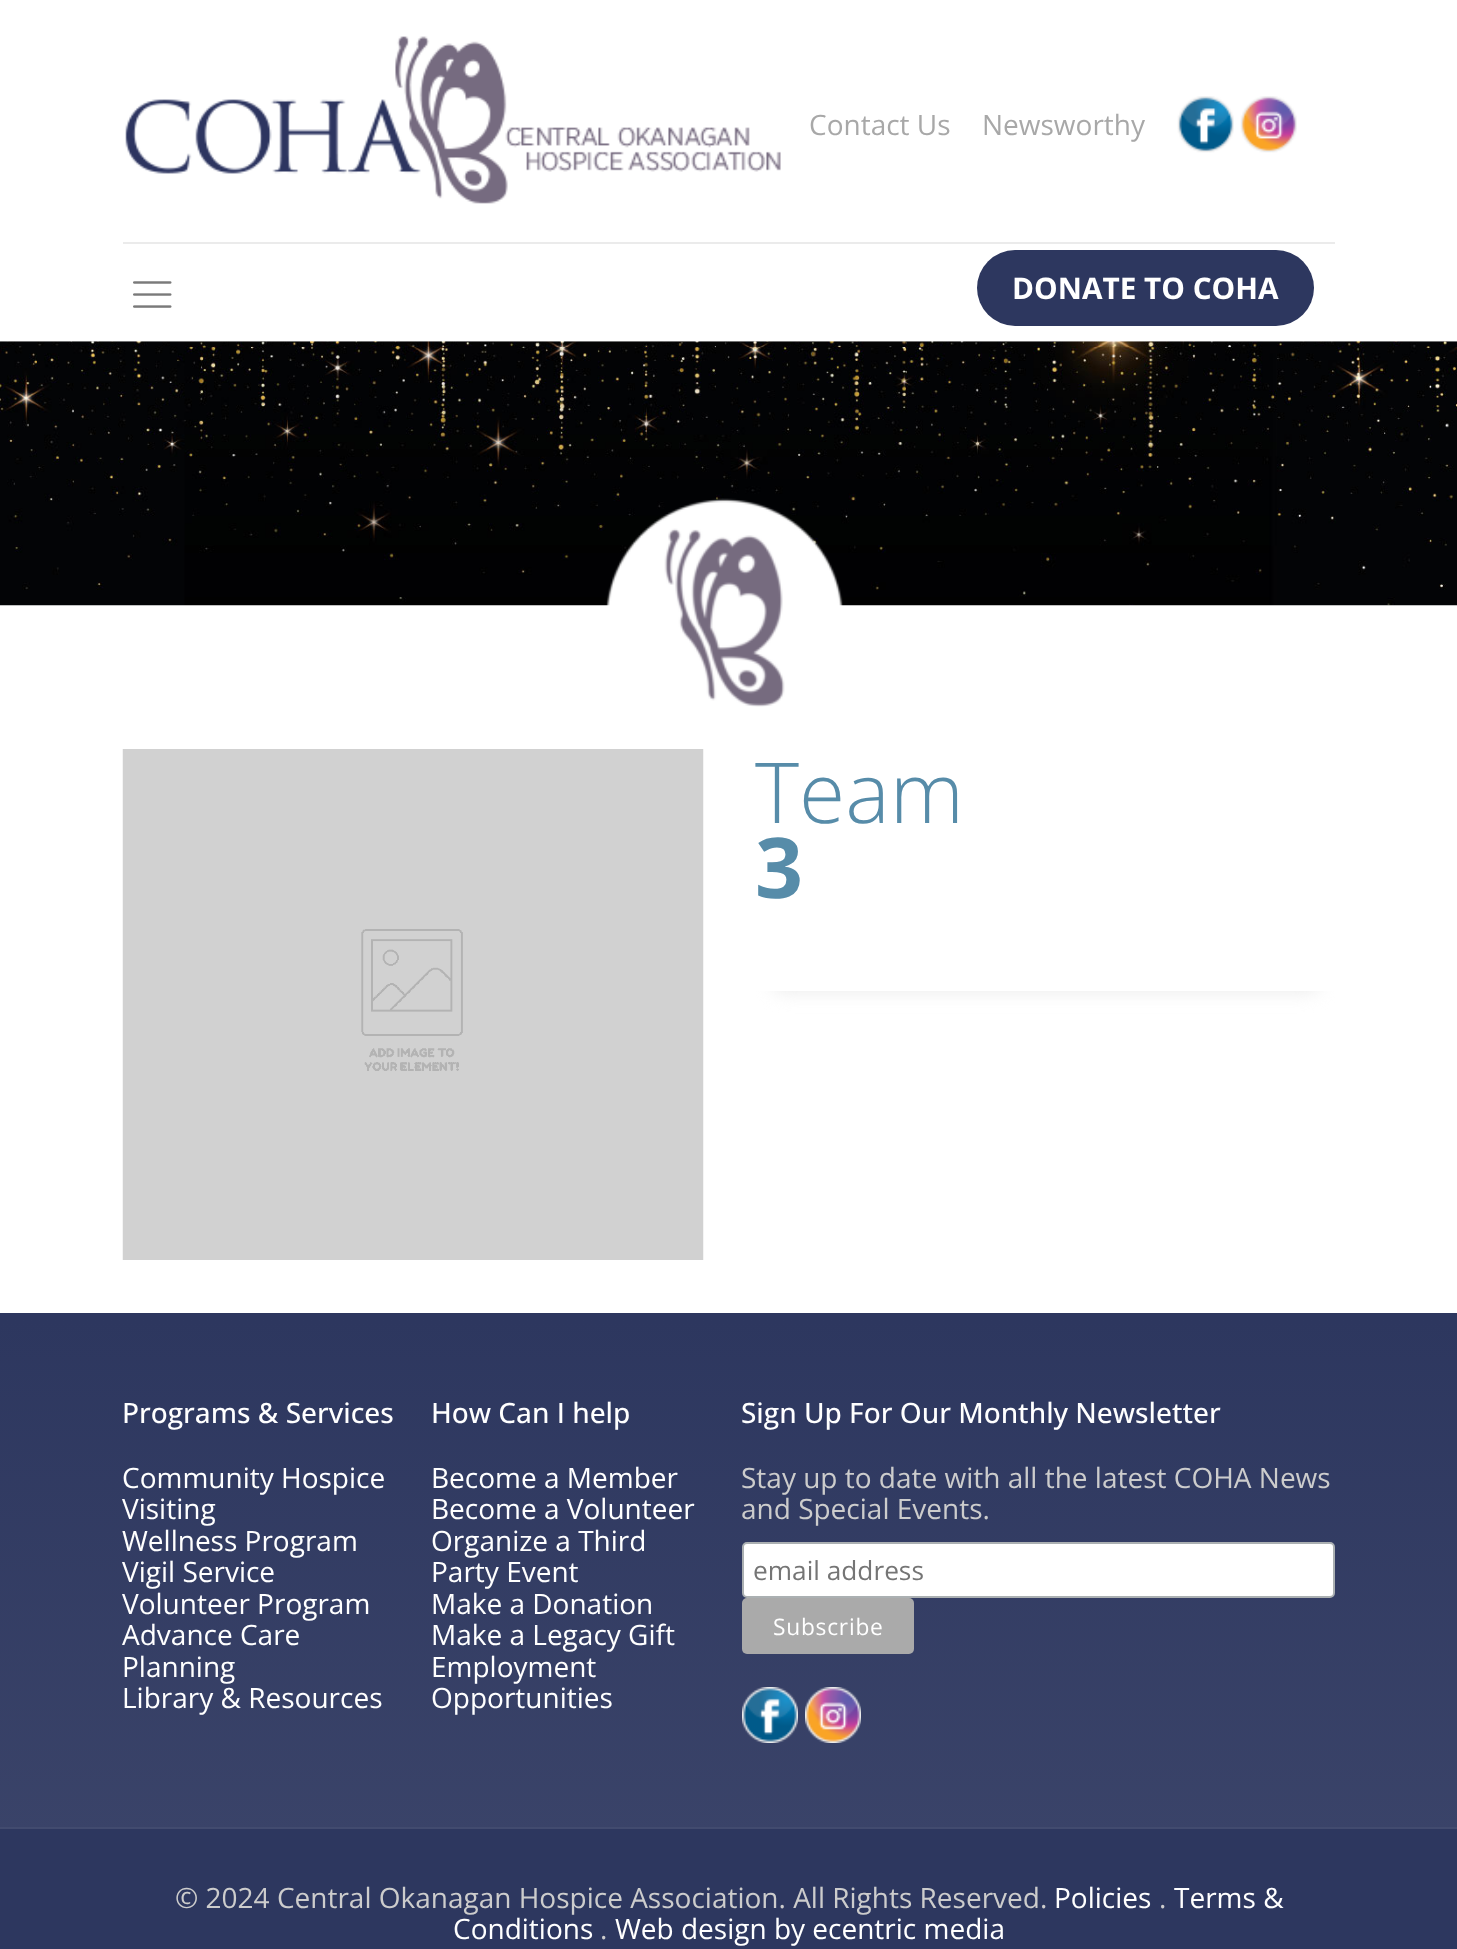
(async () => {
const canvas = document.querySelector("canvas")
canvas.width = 1457
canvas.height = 1949
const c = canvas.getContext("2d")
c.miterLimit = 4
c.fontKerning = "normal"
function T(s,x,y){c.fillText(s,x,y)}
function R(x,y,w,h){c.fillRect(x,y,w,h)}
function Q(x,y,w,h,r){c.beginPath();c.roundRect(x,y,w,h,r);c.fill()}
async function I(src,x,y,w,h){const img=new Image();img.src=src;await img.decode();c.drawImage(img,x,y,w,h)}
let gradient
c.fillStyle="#fff"
R(0,0,1457,1949)
c.fillStyle="#ebebeb"
R(123,242,1212,2)
await I("1.png",125,36,656,168)
c.font="28px Open Sans"
c.fillStyle="#a8a8a8"
T("Contact Us",809,135)
T("Newsworthy",982,135)
await I("2.png",1177,96,57,57)
await I("3.png",1240,96,57,57)
await I("4.png",133,281,39,27)
c.fillStyle="#2d375f"
Q(977,250,337,76,38)
c.font="bold 29.75px Open Sans"
c.fillStyle="#fff"
T("DONATE TO COHA",1012,299)
await I("5.png",0,341,1457,265)
await I("6.png",606,498,237,209)
await I("7.png",122,749,582,511)
c.font="300 84px Open Sans"
c.fillStyle="#578ca9"
T("Team",755,823)
c.font="bold 84px Open Sans"
T("3",755,898)
c.save()
c.beginPath()
c.rect(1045,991,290,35)
c.clip()
c.fillStyle="#ebebeb"
c.filter="blur(9px)"
c.beginPath()
c.roundRect(737,971,583,21,10.5)
c.fill()
c.filter="none"
c.restore()
c.save()
c.beginPath()
c.rect(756,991,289,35)
c.clip()
c.fillStyle="#ebebeb"
c.filter="blur(9px)"
c.beginPath()
c.roundRect(772,971,583,21,10.5)
c.fill()
c.filter="none"
c.restore()
gradient = c.createLinearGradient(729,1313,729,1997)
gradient.addColorStop(0,"#2d375f")
gradient.addColorStop(.01,"#2d375f")
gradient.addColorStop(1,"#3e476c")
c.fillStyle = gradient
R(0,1313,1457,514)
c.font="500 28px Open Sans"
c.fillStyle="#fff"
T("Programs & Services",122,1423)
c.font="28px Open Sans"
T("Community Hospice",122,1488)
T("Visiting",122,1519)
T("Wellness Program",122,1551)
T("Vigil Service",122,1582)
T("Volunteer Program",122,1614)
T("Advance Care",122,1645)
T("Planning",122,1677)
T("Library & Resources",122,1708)
c.font="500 28px Open Sans"
T("How Can I help",431,1423)
c.font="28px Open Sans"
T("Become a Member",431,1488)
T("Become a Volunteer",431,1519)
T("Organize a Third",431,1551)
T("Party Event",431,1582)
T("Make a Donation",431,1614)
T("Make a Legacy Gift",431,1645)
T("Employment",431,1677)
T("Opportunities",431,1708)
c.font="500 28px Open Sans"
T("Sign Up For Our Monthly Newsletter",741,1423)
c.font="28px Open Sans"
c.fillStyle="#ccc"
T("Stay up to date with all the latest COHA News",741,1488)
T("and Special Events.",741,1519)
c.fillStyle="#fff"
c.beginPath()
c.roundRect(743,1543,591,54,4)
c.fill()
c.strokeStyle="#abb0b2"
c.lineWidth=2
c.stroke()
c.font="26.25px Open Sans"
c.fillStyle="#757575"
T("email address",753,1580)
c.fillStyle="#aaa"
Q(742,1598,172,56,5)
c.letterSpacing="0.75px"
c.font="22.75px Open Sans"
c.fillStyle="#fff"
T("Subscribe",773,1635)
await I("8.png",742,1687,56,56)
await I("9.png",805,1687,56,56)
c.fillStyle="#2d375f"
R(0,1829,1457,120)
c.fillStyle="#424b6f"
R(0,1827,1457,2)
c.letterSpacing="0px"
c.font="28px Open Sans"
c.fillStyle="#ccc"
T("© 2024 Central Okanagan Hospice Association. All Rights Reserved.",175,1908)
c.fillStyle="#fff"
T("Policies",1054,1908)
c.fillStyle="#ccc"
T(".",1159,1908)
c.fillStyle="#fff"
T("Terms &",1174,1908)
T("Conditions",453,1939)
c.fillStyle="#ccc"
T(".",600,1939)
c.fillStyle="#fff"
T("Web design by ecentric media",615,1939)
})()
